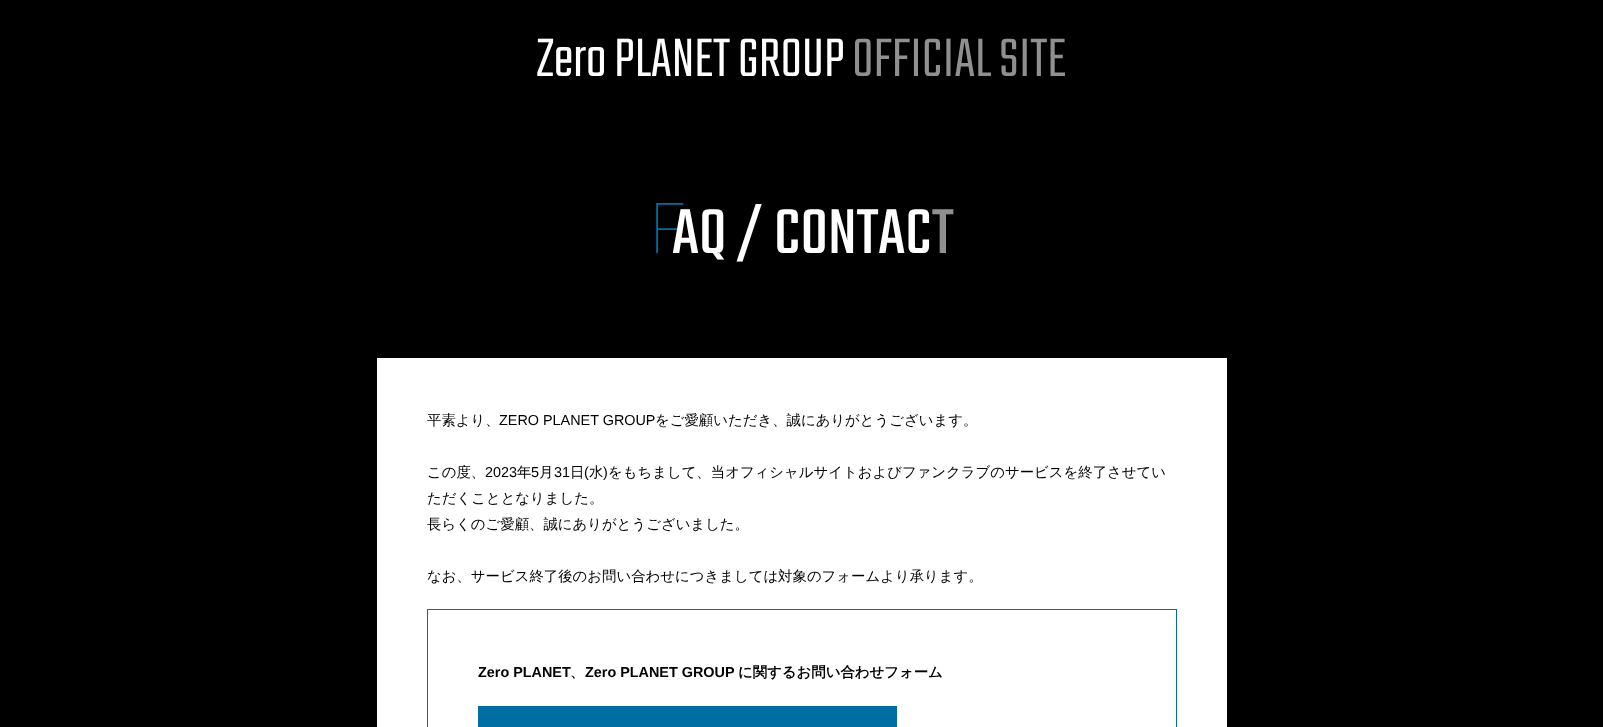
(async () => {
const canvas = document.querySelector("canvas")
canvas.width = 1603
canvas.height = 727
const c = canvas.getContext("2d")
c.miterLimit = 4
c.fontKerning = "normal"
function T(s,x,y){c.fillText(s,x,y)}
function R(x,y,w,h){c.fillRect(x,y,w,h)}
c.fillStyle="#000"
R(0,0,1603,727)
c.font="300 60px Teko"
c.fillStyle="#fff"
T("Zero PLANET GROUP",537,76)
c.fillStyle="#909090"
T("OFFICIAL SITE",852,76)
c.font="100 70px Noto Sans"
c.fillStyle="#006ea2"
T("F",649,253)
c.font="70px Teko"
c.fillStyle="#fff"
T("AQ / CONTAC",672,253)
c.fillStyle="#909090"
T("T",932,253)
c.fillStyle="#fff"
R(377,358,850,369)
c.font="500 14.4px WenQuanYi Zen Hei"
c.fillStyle="#000"
T("平素より、",427,425)
c.font="14.4px Liberation Sans"
T("ZERO PLANET GROUP",499,425)
c.font="500 14.4px WenQuanYi Zen Hei"
T("をご愛顧いただき、誠にありがとうございます。",655,425)
T("この度、",427,477)
c.font="14.4px Liberation Sans"
T("2023",485,477)
c.font="500 14.4px WenQuanYi Zen Hei"
T("年",517,477)
c.font="14.4px Liberation Sans"
T("5",531,477)
c.font="500 14.4px WenQuanYi Zen Hei"
T("月",539,477)
c.font="14.4px Liberation Sans"
T("31",554,477)
c.font="500 14.4px WenQuanYi Zen Hei"
T("日",570,477)
c.font="14.4px Liberation Sans"
T("(",584,477)
c.font="500 14.4px WenQuanYi Zen Hei"
T("水",589,477)
c.font="14.4px Liberation Sans"
T(")",603,477)
c.font="500 14.4px WenQuanYi Zen Hei"
T("をもちまして、当オフィシャルサイトおよびファンクラブのサービスを終了させてい",608,477)
T("ただくこととなりました。",427,503)
T("長らくのご愛顧、誠にありがとうございました。",427,529)
T("なお、サービス終了後のお問い合わせにつきましては対象のフォームより承ります。",427,581)
c.strokeStyle="#006ea2"
c.strokeRect(427.5,609.5,749,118)
c.font="bold 14.4px Liberation Sans"
T("Zero PLANET",478,677)
c.font="bold 14.4px WenQuanYi Zen Hei"
T("、",570,677)
c.font="bold 14.4px Liberation Sans"
T("Zero PLANET GROUP",585,677)
c.font="bold 14.4px WenQuanYi Zen Hei"
T("に関するお問い合わせフォーム",738,677)
c.fillStyle="#006ea2"
R(478,706,419,21)
})()
